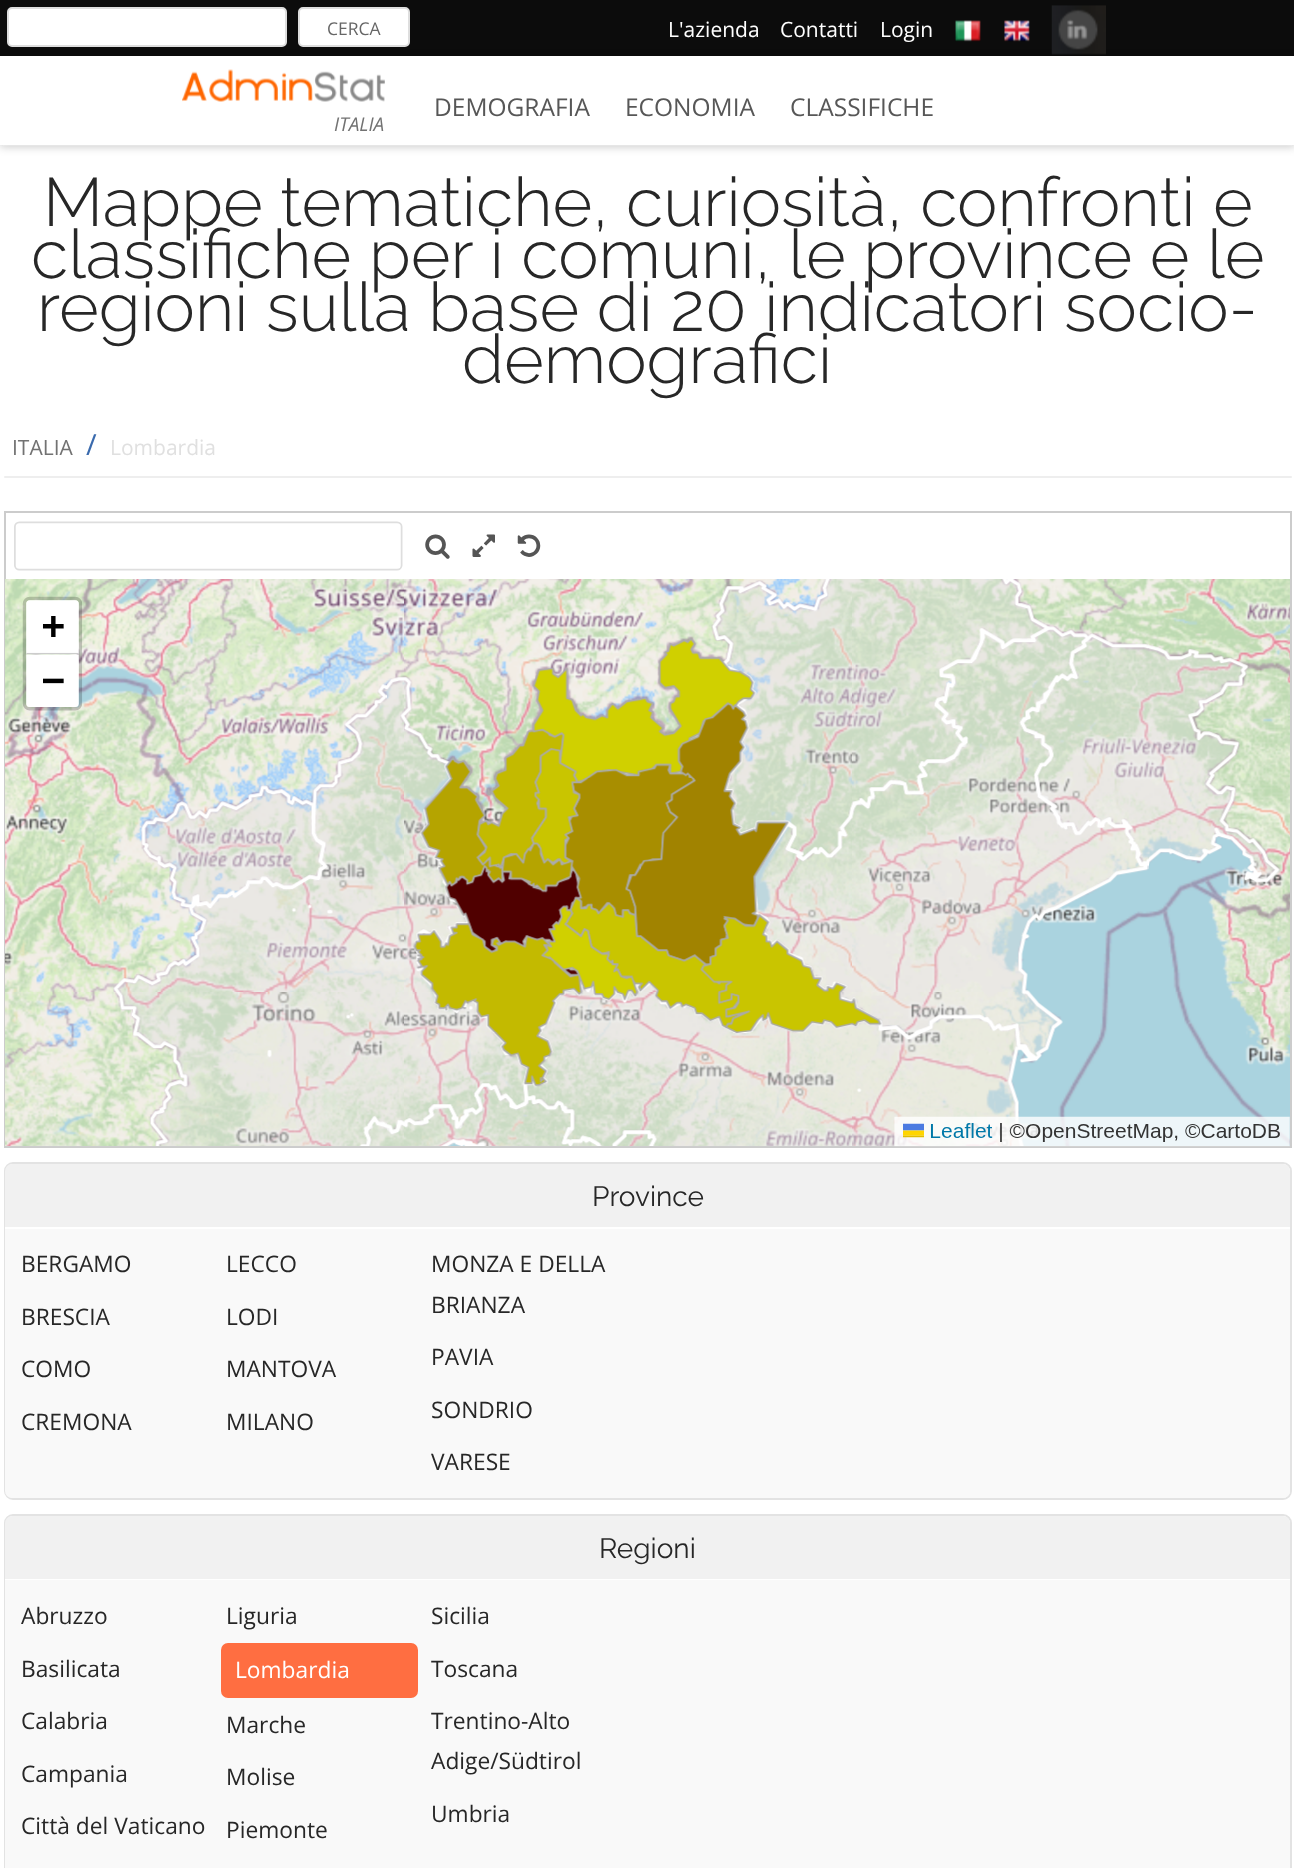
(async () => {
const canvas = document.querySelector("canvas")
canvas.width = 1294
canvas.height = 1868
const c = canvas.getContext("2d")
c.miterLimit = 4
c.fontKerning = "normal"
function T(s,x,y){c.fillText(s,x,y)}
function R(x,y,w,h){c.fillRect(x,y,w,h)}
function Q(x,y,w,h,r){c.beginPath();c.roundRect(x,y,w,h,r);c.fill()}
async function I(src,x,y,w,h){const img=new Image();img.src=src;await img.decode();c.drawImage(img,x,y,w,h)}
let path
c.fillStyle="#fff"
R(0,0,1294,1868)
c.fillStyle="#0c0c0c"
R(0,0,1294,56)
c.font="21px Open Sans"
c.fillStyle="#fff"
T("L'azienda",668,37)
T("Contatti",780,37)
T("Login",880,37)
await I("1.png",955,20,26,22)
await I("2.png",1004,20,26,22)
c.save()
path = new Path2D("M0 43h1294v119h-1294zm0 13h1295v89h-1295z")
c.clip(path,"evenodd")
c.fillStyle="#00000033"
c.filter="blur(4.5px)"
c.beginPath()
c.rect(0,58,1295,89)
c.fill()
c.filter="none"
c.restore()
await I("3.png",1051,5,55,50)
c.fillStyle="#ffffff3b"
R(3,145,1289,1)
c.fillStyle="#fff"
c.beginPath()
c.roundRect(8,8,278,38,4)
c.fill()
c.strokeStyle="#dedede"
c.lineWidth=2
c.stroke()
c.beginPath()
c.roundRect(299,8,110,38,4)
c.fill()
c.stroke()
c.font="17.5px Open Sans"
c.fillStyle="#666"
T("CERCA",327,35)
c.font="24.5px Open Sans"
c.fillStyle="#575757"
T("DEMOGRAFIA",434,116)
T("ECONOMIA",625,116)
T("CLASSIFICHE",790,116)
await I("4.png",182,69,203,33)
c.font="italic 19px Open Sans"
c.fillStyle="#727272"
T("ITALIA",334,131)
c.font="300 68.25px Raleway"
c.fillStyle="#272727"
T("Mappe tematiche, curiosità, confronti e",43,226)
T("classifiche per i comuni, le province e le",31,278)
T("regioni sulla base di 20 indicatori socio-",37,331)
T("demografici",462,383)
c.font="21px Open Sans"
c.fillStyle="#727272"
T("ITALIA",12,455)
c.font="29px Open Sans"
c.fillStyle="#3a6aad"
T("/",86,455)
c.font="21px Open Sans"
c.fillStyle="#e0e0e0"
T("Lombardia",110,455)
c.fillStyle="#eee"
Q(4,476,1288,2,1)
c.strokeStyle="#ccc"
c.strokeRect(5,512,1286,635)
await I("5.png",5,521,1285,626)
c.beginPath()
c.roundRect(5,1163,1286,336,8)
c.strokeStyle="#e3e3e3"
c.stroke()
c.fillStyle="#f1f1f1"
c.beginPath()
c.roundRect(5,1164,1285,65,[7,7,0,0])
c.fill()
c.fillStyle="#fff"
R(5,1227,1285,2)
c.font="28px Raleway"
c.fillStyle="#272727"
T("Province",592,1206)
c.fillStyle="#f9f9f9"
c.beginPath()
c.roundRect(5,1229,1285,269,[0,0,7,7])
c.fill()
c.font="22.75px Open Sans"
c.fillStyle="#272727"
T("BERGAMO",21,1272)
T("BRESCIA",21,1325)
T("COMO",21,1377)
T("CREMONA",21,1430)
T("LECCO",226,1272)
T("LODI",226,1325)
T("MANTOVA",226,1377)
T("MILANO",226,1430)
T("MONZA E DELLA",431,1272)
T("BRIANZA",431,1313)
T("PAVIA",431,1365)
T("SONDRIO",431,1418)
T("VARESE",431,1470)
c.beginPath()
c.roundRect(5,1515,1286,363,8)
c.stroke()
c.fillStyle="#f1f1f1"
c.beginPath()
c.roundRect(5,1516,1285,64,[7,7,0,0])
c.fill()
c.fillStyle="#fff"
R(5,1579,1285,1)
c.font="28px Raleway"
c.fillStyle="#272727"
T("Regioni",599,1558)
c.fillStyle="#f9f9f9"
R(5,1580,1285,288)
c.font="22.75px Open Sans"
c.fillStyle="#272727"
T("Abruzzo",21,1624)
T("Basilicata",21,1677)
T("Calabria",21,1729)
T("Campania",21,1782)
T("Città del Vaticano",21,1834)
T("Liguria",226,1624)
c.fillStyle="#ff6e41"
Q(221,1643,197,55,7)
c.fillStyle="#fff"
T("Lombardia",235,1678)
c.fillStyle="#272727"
T("Marche",226,1733)
T("Molise",226,1785)
T("Piemonte",226,1838)
T("Sicilia",431,1624)
T("Toscana",431,1677)
T("Trentino-Alto",431,1729)
T("Adige/Südtirol",431,1769)
T("Umbria",431,1822)
})()
